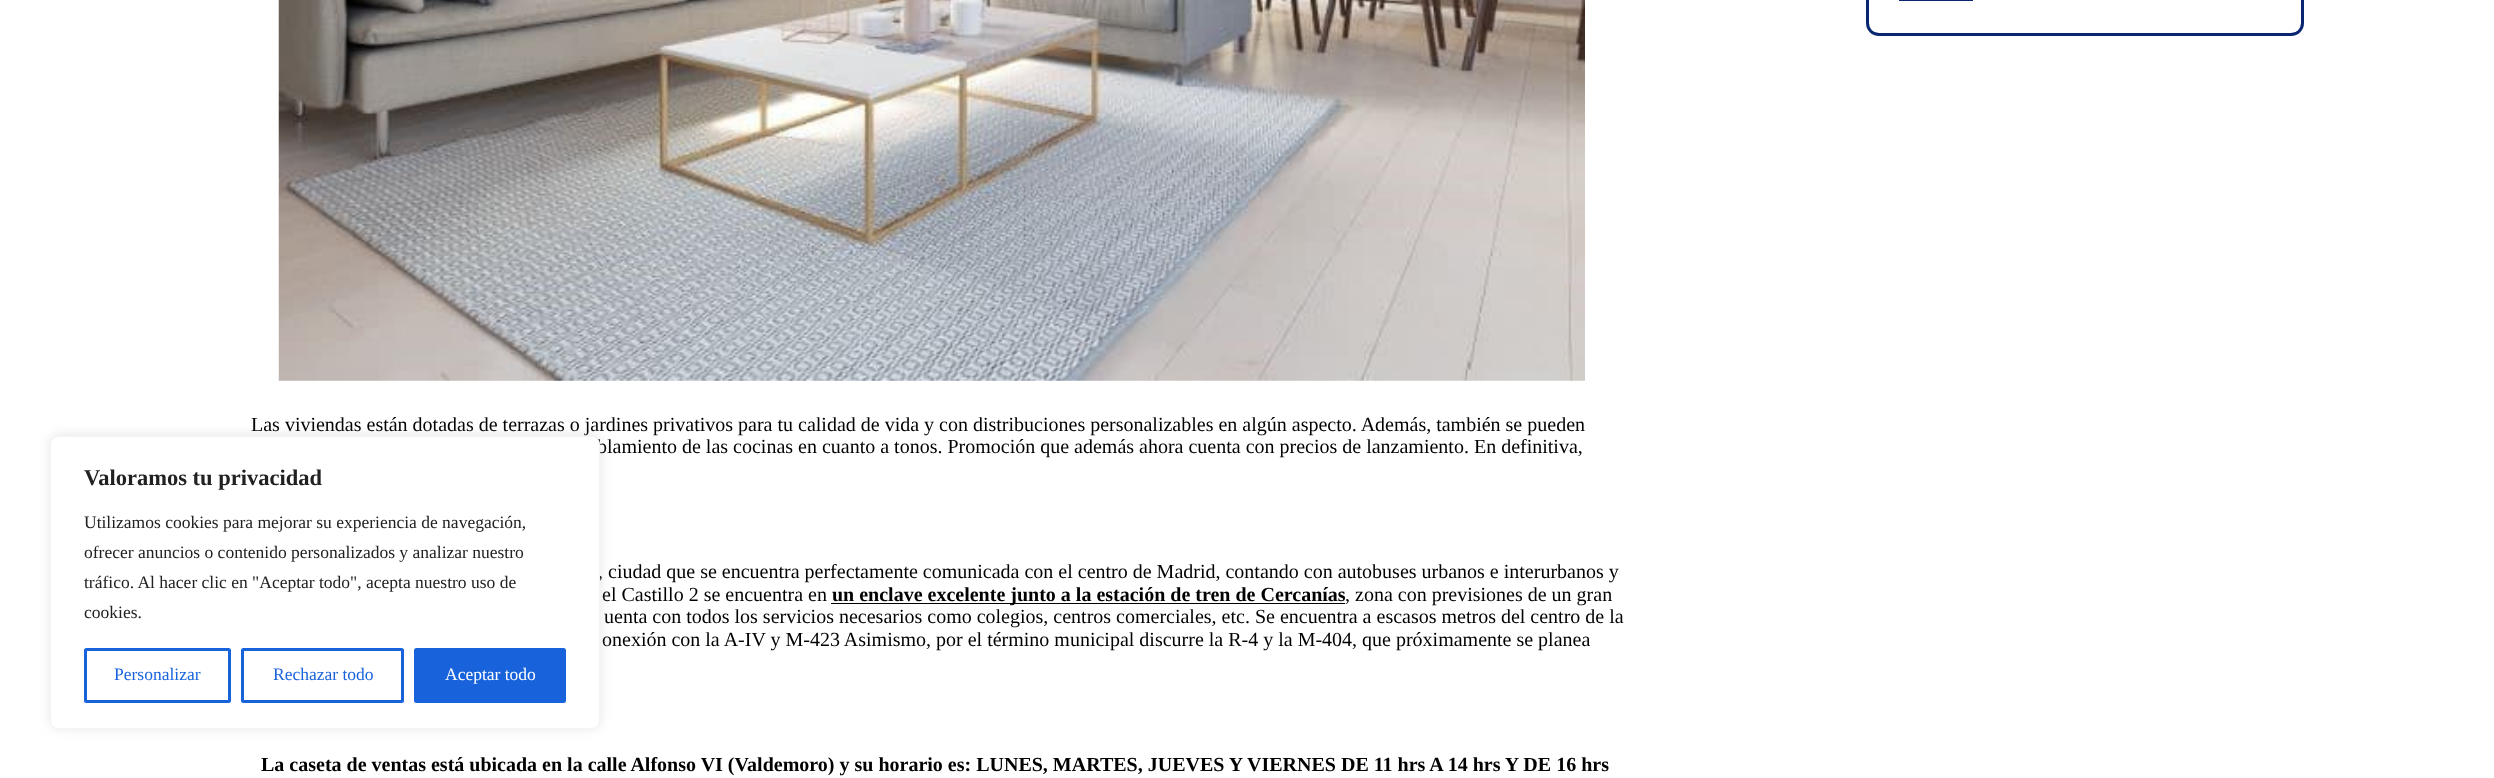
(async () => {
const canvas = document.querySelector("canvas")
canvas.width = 2494
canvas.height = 778
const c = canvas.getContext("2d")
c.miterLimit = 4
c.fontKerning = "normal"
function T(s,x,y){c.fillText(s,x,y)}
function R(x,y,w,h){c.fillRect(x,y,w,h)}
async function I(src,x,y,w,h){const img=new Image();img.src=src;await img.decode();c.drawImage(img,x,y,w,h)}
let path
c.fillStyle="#fff"
R(0,0,2494,778)
path = new Path2D("M1867.5-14.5h423.5c6.5 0 11.5 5 11.5 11.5v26c0 6.5-5 11.5-11.5 11.5h-412c-6.5 0-11.5-5-11.5-11.5z")
c.strokeStyle="#092770"
c.lineWidth=3
c.stroke(path)
c.fillStyle="#092770"
R(1899,0,74,1)
await I("1.png",278,0,1307,381)
c.font="20px Liberation Serif"
c.fillStyle="#000"
T("Las viviendas están dotadas de terrazas o jardines privativos para tu calidad de vida y con distribuciones personalizables en algún aspecto. Además, también se pueden",251,431)
T("blamiento de las cocinas en cuanto a tonos. Promoción que además ahora cuenta con precios de lanzamiento. En definitiva,",597,453)
T(", ciudad que se encuentra perfectamente comunicada con el centro de Madrid, contando con autobuses urbanos e interurbanos y",598,578)
T("el Castillo 2 se encuentra en",602,601)
R(831,603,514,1)
c.font="bold 20px Liberation Serif"
T("un enclave excelente junto a la estación de tren de Cercanías",832,601)
c.font="20px Liberation Serif"
T(", zona con previsiones de un gran",1345,601)
T("uenta con todos los servicios necesarios como colegios, centros comerciales, etc. Se encuentra a escasos metros del centro de la",604,623)
T("onexión con la A-IV y M-423 Asimismo, por el término municipal discurre la R-4 y la M-404, que próximamente se planea",602,646)
c.font="bold 20px Liberation Serif"
T("La caseta de ventas está ubicada en la calle Alfonso VI (Valdemoro) y su horario es: LUNES, MARTES, JUEVES Y VIERNES DE 11 hrs A 14 hrs Y DE 16 hrs",261,771)
c.fillStyle="#acabab4d"
c.filter="blur(6px)"
c.beginPath()
c.roundRect(50,435,550,293,8)
c.fill()
c.filter="none"
c.fillStyle="#fff"
c.beginPath()
c.roundRect(50.5,436.5,549,292,7.5)
c.fill()
c.strokeStyle="#f4f4f4"
c.lineWidth=1
c.stroke()
c.font="bold 22.5px Liberation Serif"
c.fillStyle="#212121"
T("Valoramos tu privacidad",84,485)
c.font="17.5px Liberation Serif"
T("Utilizamos cookies para mejorar su experiencia de navegación,",84,528)
T("ofrecer anuncios o contenido personalizados y analizar nuestro",84,558)
T("tráfico. Al hacer clic en \"Aceptar todo\", acepta nuestro uso de",84,588)
T("cookies.",84,618)
c.beginPath()
c.roundRect(85.5,649.5,144,52,1)
c.strokeStyle="#1863dc"
c.lineWidth=3
c.stroke()
c.fillStyle="#1863dc"
T("Personalizar",114,680)
c.beginPath()
c.roundRect(242.5,649.5,160,52,1)
c.stroke()
T("Rechazar todo",273,680)
c.beginPath()
c.roundRect(415.5,649.5,149,52,1)
c.fill()
c.stroke()
c.fillStyle="#fff"
T("Aceptar todo",445,680)
})()
